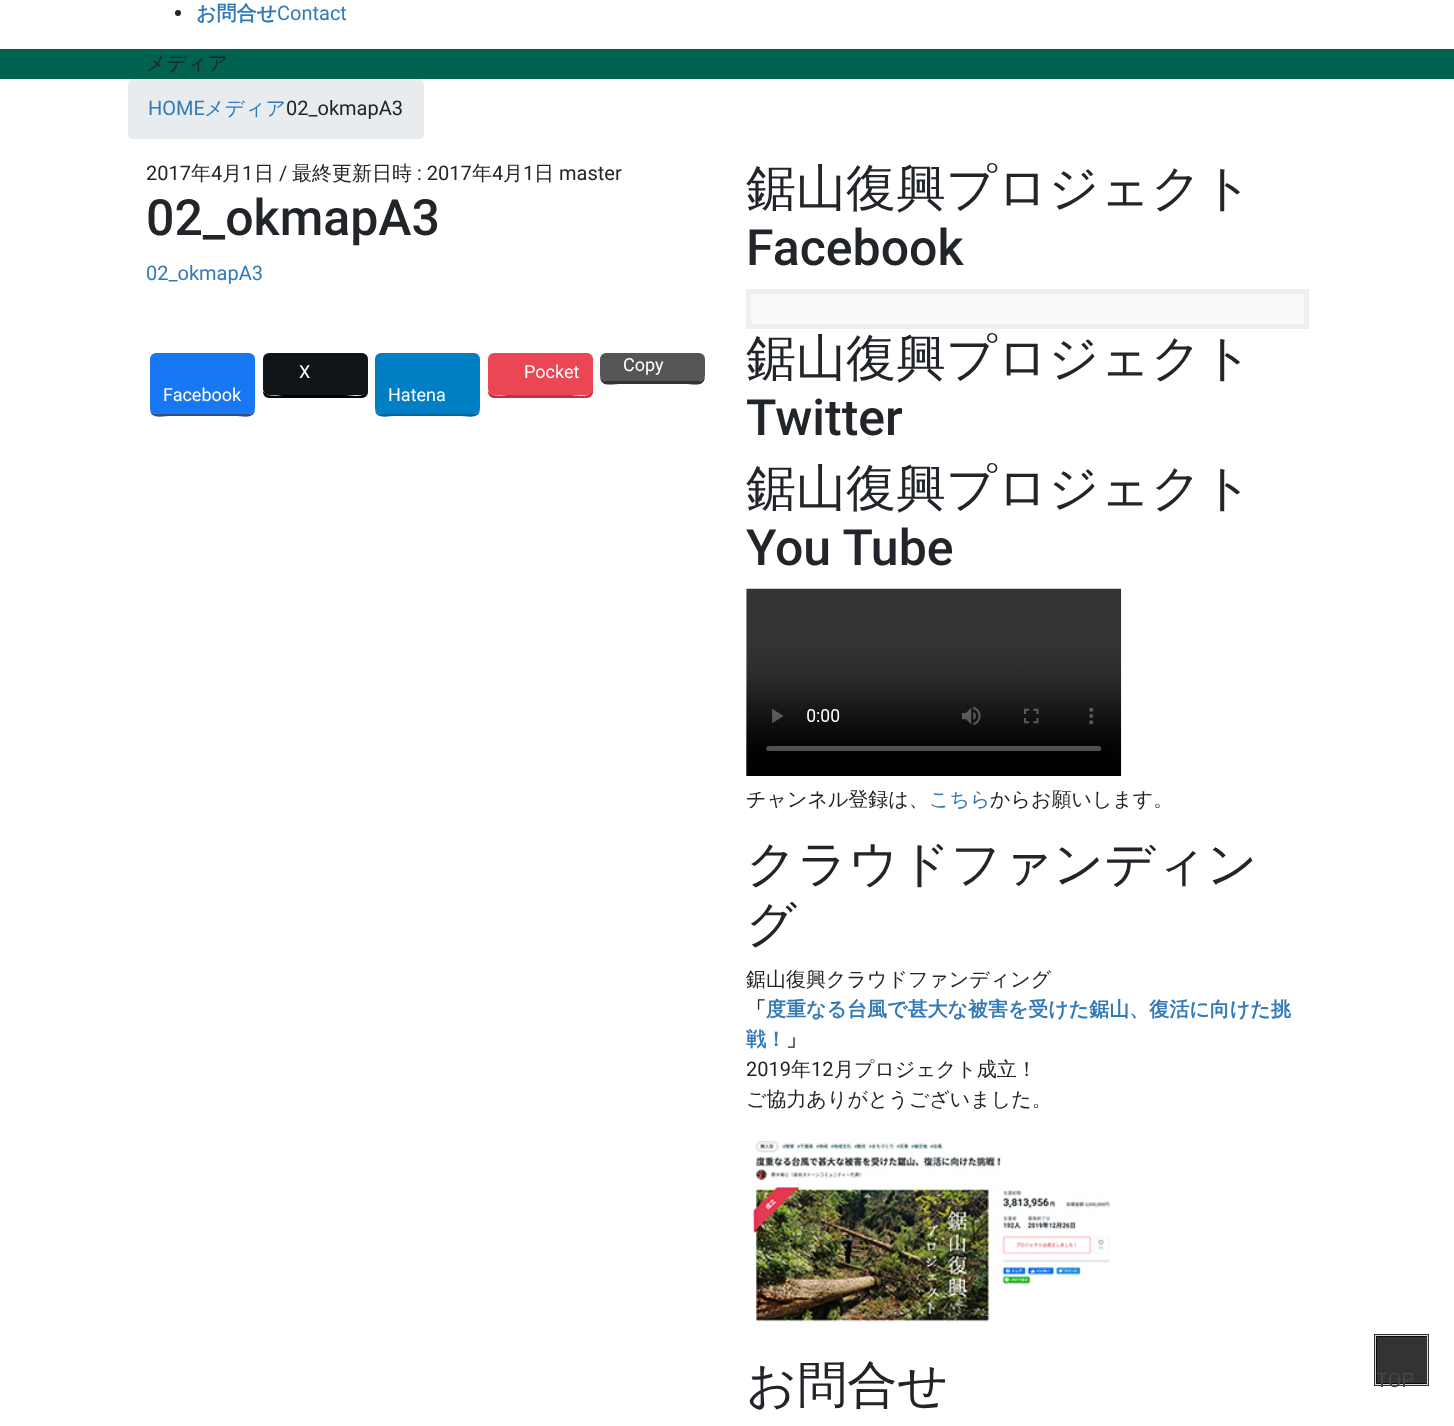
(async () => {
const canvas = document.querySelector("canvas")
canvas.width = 1454
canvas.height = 1426
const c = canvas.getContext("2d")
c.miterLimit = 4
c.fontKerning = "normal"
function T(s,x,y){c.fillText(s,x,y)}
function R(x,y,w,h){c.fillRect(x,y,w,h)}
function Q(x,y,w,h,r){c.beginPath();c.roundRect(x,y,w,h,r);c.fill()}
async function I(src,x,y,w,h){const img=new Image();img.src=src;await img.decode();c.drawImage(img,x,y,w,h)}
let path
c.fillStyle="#fff"
R(0,0,1454,1426)
c.fillStyle="#212529"
c.beginPath()
c.arc(178,13,3,0,7)
c.fill()
c.font="bold 20px WenQuanYi Zen Hei"
c.fillStyle="#337ab7"
T("お問合せ",196,20)
c.font="20px Roboto"
T("Contact",277,20)
c.fillStyle="#00634f"
R(0,49,1454,30)
c.font="500 20px WenQuanYi Zen Hei"
c.fillStyle="#212529"
T("メディア",146,70)
c.fillStyle="#e9ecef"
Q(128,79,296,60,5)
c.font="20px Roboto"
c.fillStyle="#337ab7"
T("HOME",148,115)
c.font="500 20px WenQuanYi Zen Hei"
T("メディア",204,115)
c.font="20px Roboto"
c.fillStyle="#212529"
T("02_okmapA3",286,115)
T("2017",146,180)
c.font="500 20px WenQuanYi Zen Hei"
T("年",191,180)
c.font="20px Roboto"
T("4",211,180)
c.font="500 20px WenQuanYi Zen Hei"
T("月",222,180)
c.font="20px Roboto"
T("1",242,180)
c.font="500 20px WenQuanYi Zen Hei"
T("日",254,180)
c.font="20px Roboto"
T("/",279,180)
c.font="500 20px WenQuanYi Zen Hei"
T("最終更新日時",292,180)
c.font="20px Roboto"
T(": 2017",417,180)
c.font="500 20px WenQuanYi Zen Hei"
T("年",472,180)
c.font="20px Roboto"
T("4",492,180)
c.font="500 20px WenQuanYi Zen Hei"
T("月",503,180)
c.font="20px Roboto"
T("1",523,180)
c.font="500 20px WenQuanYi Zen Hei"
T("日",534,180)
c.font="20px Roboto"
T("master",559,180)
c.font="500 50px Roboto"
T("02_okmapA3",146,235)
c.font="20px Roboto"
c.fillStyle="#337ab7"
T("02_okmapA3",146,280)
c.fillStyle="#000"
path = new Path2D("M263 391v1c0 3 3 6 6 6h93c3 0 6-3 6-6v-31l-1-2v31c-1 9-18 5-21 5h-62c-3 0-18 3-21-4z")
c.fill(path)
c.fillStyle="#0f1419"
Q(263,353,105,42,6)
c.font="18px Roboto"
c.fillStyle="#fff"
T("X",299,378)
c.fillStyle="#c1303c"
path = new Path2D("M488 391v1c0 3 3 6 6 6h93c3 0 6-3 6-6v-31l-1-2v31c-1 9-18 5-21 5h-62c-3 0-18 3-21-4z")
c.fill(path)
c.fillStyle="#ea4654"
Q(488,353,105,42,6)
c.fillStyle="#fff"
T("Pocket",524,378)
c.fillStyle="#333"
path = new Path2D("M600 375c0 13 10 9 22 9h62c11 0 21 4 21-9c0 3-3 6-6 6h-93c-3 0-6-3-6-6z")
c.fill(path)
c.fillStyle="#555"
Q(600,353,105,28,6)
c.fillStyle="#fff"
T("Copy",623,371)
c.fillStyle="#344e84"
path = new Path2D("M150 408c0 12 11 8 22 8h62c10 0 21 4 21-8c0 3-3 6-6 6h-93c-3 0-6-3-6-6z")
c.fill(path)
c.fillStyle="#1877f2"
Q(150,353,105,61,6)
c.fillStyle="#fff"
T("Facebook",163,401)
c.fillStyle="#00679f"
path = new Path2D("M375 408c0 12 11 8 21 8h62c11 0 22 4 22-8c0 3-3 6-6 6h-93c-3 0-6-3-6-6z")
c.fill(path)
c.fillStyle="#007fc5"
Q(375,353,105,61,6)
c.fillStyle="#fff"
T("Hatena",388,401)
c.font="500 50px WenQuanYi Zen Hei"
c.fillStyle="#212529"
T("鋸山復興プロジェクト",746,205)
c.font="500 50px Roboto"
T("Facebook",746,265)
c.fillStyle="#f9f9f9"
c.beginPath()
c.rect(748.5,291.5,558,35)
c.fill()
c.strokeStyle="#efefef"
c.lineWidth=5
c.stroke()
c.font="500 50px WenQuanYi Zen Hei"
c.fillStyle="#212529"
T("鋸山復興プロジェクト",746,375)
c.font="500 50px Roboto"
T("Twitter",746,435)
c.font="500 50px WenQuanYi Zen Hei"
T("鋸山復興プロジェクト",746,505)
c.font="500 50px Roboto"
T("You Tube",746,565)
await I("1.png",746,588,376,188)
c.font="500 20px WenQuanYi Zen Hei"
T("チャンネル登録は、",746,806)
c.fillStyle="#337ab7"
T("こちら",929,806)
c.fillStyle="#212529"
T("からお願いします。",990,806)
c.font="500 50px WenQuanYi Zen Hei"
T("クラウドファンディン",746,881)
T("グ",746,941)
c.font="500 20px WenQuanYi Zen Hei"
T("鋸山復興クラウドファンディング",746,986)
c.font="bold 20px WenQuanYi Zen Hei"
T("「",746,1016)
c.fillStyle="#337ab7"
T("度重なる台風で甚大な被害を受けた鋸山、復活に向けた挑",766,1016)
T("戦！",746,1046)
c.fillStyle="#212529"
T("」",786,1046)
c.font="20px Roboto"
T("2019",746,1076)
c.font="500 20px WenQuanYi Zen Hei"
T("年",791,1076)
c.font="20px Roboto"
T("12",811,1076)
c.font="500 20px WenQuanYi Zen Hei"
T("月プロジェクト成立！",834,1076)
T("ご協力ありがとうございました。",746,1106)
await I("2.png",752,1141,359,181)
c.font="500 50px WenQuanYi Zen Hei"
T("お問合せ",746,1402)
c.strokeStyle="#333"
c.lineWidth=3
c.strokeRect(1375.5,1335.5,52,49)
c.strokeStyle="#d6d6d6"
c.lineWidth=1
c.strokeRect(1375.5,1335.5,52,49)
c.fillStyle="#000000cc"
R(1376,1336,50,48)
c.font="20px Roboto"
c.fillStyle="#454545"
T("TOP",1376,1387)
})()
